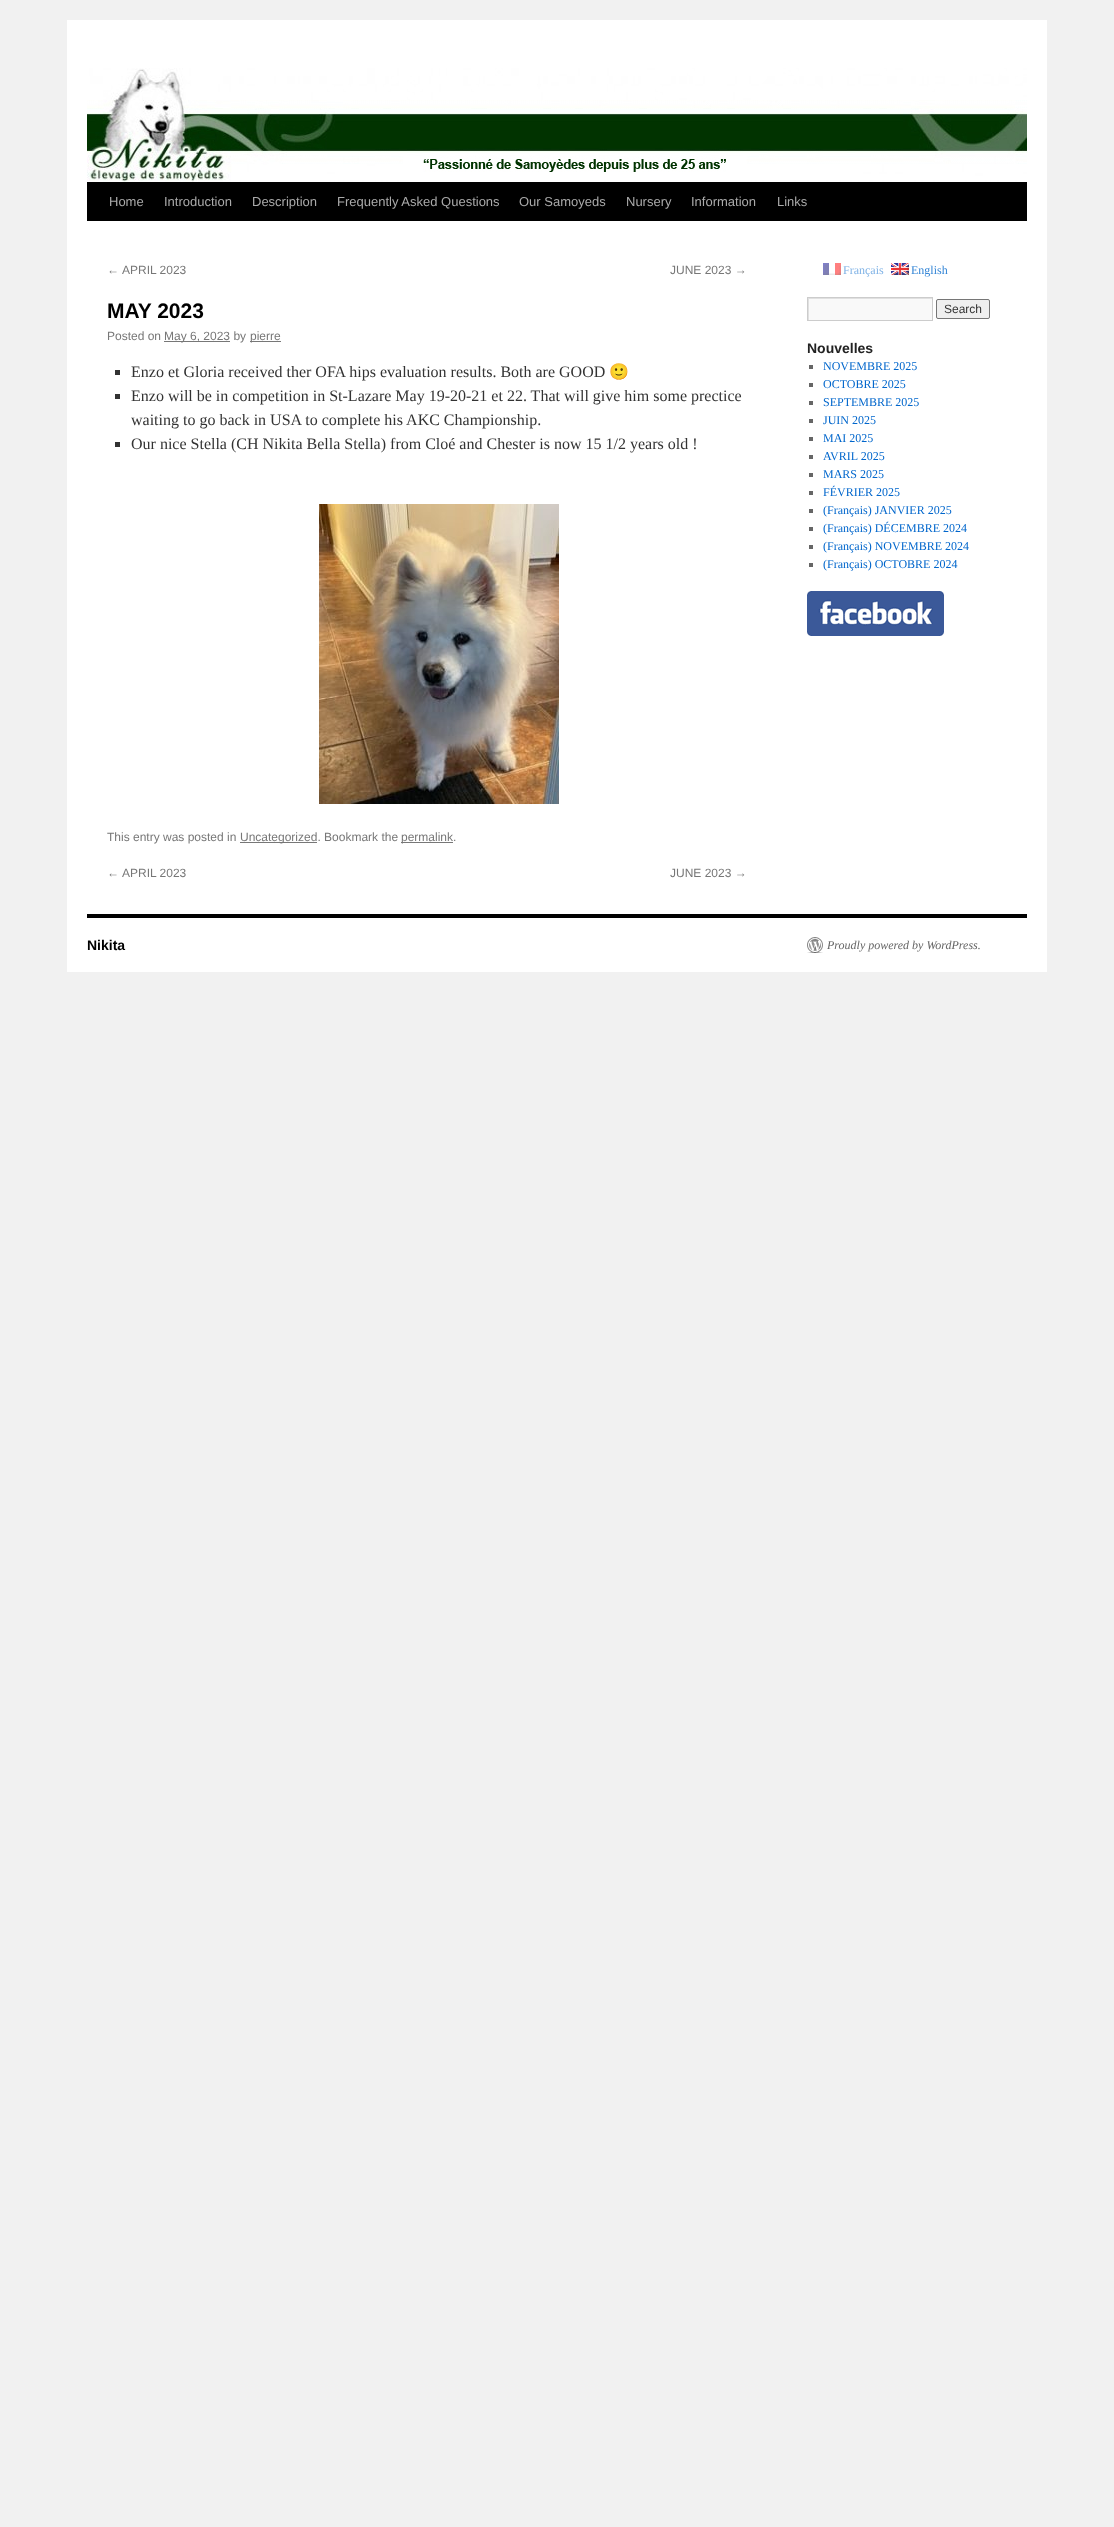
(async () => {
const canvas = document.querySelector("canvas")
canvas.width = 1114
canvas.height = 2527
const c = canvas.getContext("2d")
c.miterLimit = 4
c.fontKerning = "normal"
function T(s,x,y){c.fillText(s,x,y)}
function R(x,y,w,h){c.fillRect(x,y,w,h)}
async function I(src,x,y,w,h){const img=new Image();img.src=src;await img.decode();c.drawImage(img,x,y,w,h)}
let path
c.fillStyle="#f1f1f1"
R(0,0,1114,2527)
c.fillStyle="#fff"
R(67,20,980,952)
c.fillStyle="#000"
R(87,182,940,39)
await I("1.png",87,68,940,114)
c.font="13px Liberation Sans"
c.fillStyle="#aaa"
T("Home",109,206)
T("Introduction",164,206)
T("Description",252,206)
T("Frequently Asked Questions",337,206)
T("Our Samoyeds",519,206)
T("Nursery",626,206)
T("Information",691,206)
T("Links",777,206)
c.font="12px Liberation Sans"
c.fillStyle="#777"
T("←",107,274)
T("APRIL 2023",122,274)
T("JUNE 2023 →",670,274)
c.font="bold 21px Liberation Sans"
c.fillStyle="#000"
T("MAY 2023",107,318)
c.font="12px Liberation Sans"
c.fillStyle="#777"
T("Posted on",107,340)
R(164,341,66,1)
T("May 6, 2023 by",164,340)
R(250,341,31,1)
T("pierre",250,340)
c.fillStyle="#333"
R(115,370,5,5)
c.font="16px Liberation Serif"
T("Enzo et Gloria received ther OFA hips evaluation results. Both are GOOD",131,377)
c.font="16px Noto Color Emoji"
T("🙂",609,377)
R(115,394,5,5)
c.font="16px Liberation Serif"
T("Enzo will be in competition in St-Lazare May 19-20-21 et 22. That will give him some prectice",131,401)
T("waiting to go back in USA to complete his AKC Championship.",131,425)
R(115,442,5,5)
T("Our nice Stella (CH Nikita Bella Stella) from Cloé and Chester is now 15 1/2 years old !",131,449)
await I("2.png",319,504,240,300)
c.font="12px Liberation Sans"
c.fillStyle="#777"
T("This entry was posted in",107,841)
R(240,842,77,1)
T("Uncategorized. Bookmark the",240,841)
R(401,842,52,1)
T("permalink.",401,841)
T("←",107,877)
T("APRIL 2023",122,877)
T("JUNE 2023 →",670,877)
await I("3.png",823,263,18,12)
c.font="12px Liberation Serif"
c.fillStyle="#80b3e6"
T("Français",843,274)
await I("4.png",891,263,18,12)
c.fillStyle="#3385d6"
T("English",911,274)
c.fillStyle="#f9f9f9"
R(809,299,123,21)
c.save()
c.beginPath()
c.rect(808,298,124,22)
c.clip()
c.fillStyle="#e0e0e0"
path = new Path2D("M709 199h322v220h-322zm100 100h124v22h-124z")
c.fill(path,"evenodd")
c.restore()
c.strokeStyle="#ccc"
c.strokeRect(807.5,297.5,125,23)
c.fillStyle="#efefef"
c.beginPath()
c.roundRect(936.5,299.5,53,19,1.5)
c.fill()
c.strokeStyle="#767676"
c.stroke()
c.font="12px Liberation Sans"
c.fillStyle="#333"
T("Search",944,313)
c.font="bold 14px Liberation Sans"
c.fillStyle="#222"
T("Nouvelles",807,353)
c.fillStyle="#666"
R(809,365,4,4)
c.font="12px Liberation Serif"
c.fillStyle="#06c"
T("NOVEMBRE 2025",823,370)
c.fillStyle="#666"
R(809,383,4,4)
c.fillStyle="#06c"
T("OCTOBRE 2025",823,388)
c.fillStyle="#666"
R(809,401,4,4)
c.fillStyle="#06c"
T("SEPTEMBRE 2025",823,406)
c.fillStyle="#666"
R(809,419,4,4)
c.fillStyle="#06c"
T("JUIN 2025",823,424)
c.fillStyle="#666"
R(809,437,4,4)
c.fillStyle="#06c"
T("MAI 2025",823,442)
c.fillStyle="#666"
R(809,455,4,4)
c.fillStyle="#06c"
T("AVRIL 2025",823,460)
c.fillStyle="#666"
R(809,473,4,4)
c.fillStyle="#06c"
T("MARS 2025",823,478)
c.fillStyle="#666"
R(809,491,4,4)
c.fillStyle="#06c"
T("FÉVRIER 2025",823,496)
c.fillStyle="#666"
R(809,509,4,4)
c.fillStyle="#06c"
T("(Français) JANVIER 2025",823,514)
c.fillStyle="#666"
R(809,527,4,4)
c.fillStyle="#06c"
T("(Français) DÉCEMBRE 2024",823,532)
c.fillStyle="#666"
R(809,545,4,4)
c.fillStyle="#06c"
T("(Français) NOVEMBRE 2024",823,550)
c.fillStyle="#666"
R(809,563,4,4)
c.fillStyle="#06c"
T("(Français) OCTOBRE 2024",823,568)
await I("5.png",807,591,137,45)
c.fillStyle="#000"
R(87,914,940,4)
c.font="bold 14px Liberation Sans"
T("Nikita",87,950)
await I("6.png",807,937,16,16)
c.font="italic 12px Liberation Serif"
c.fillStyle="#666"
T("Proudly powered by WordPress.",827,949)
})()
